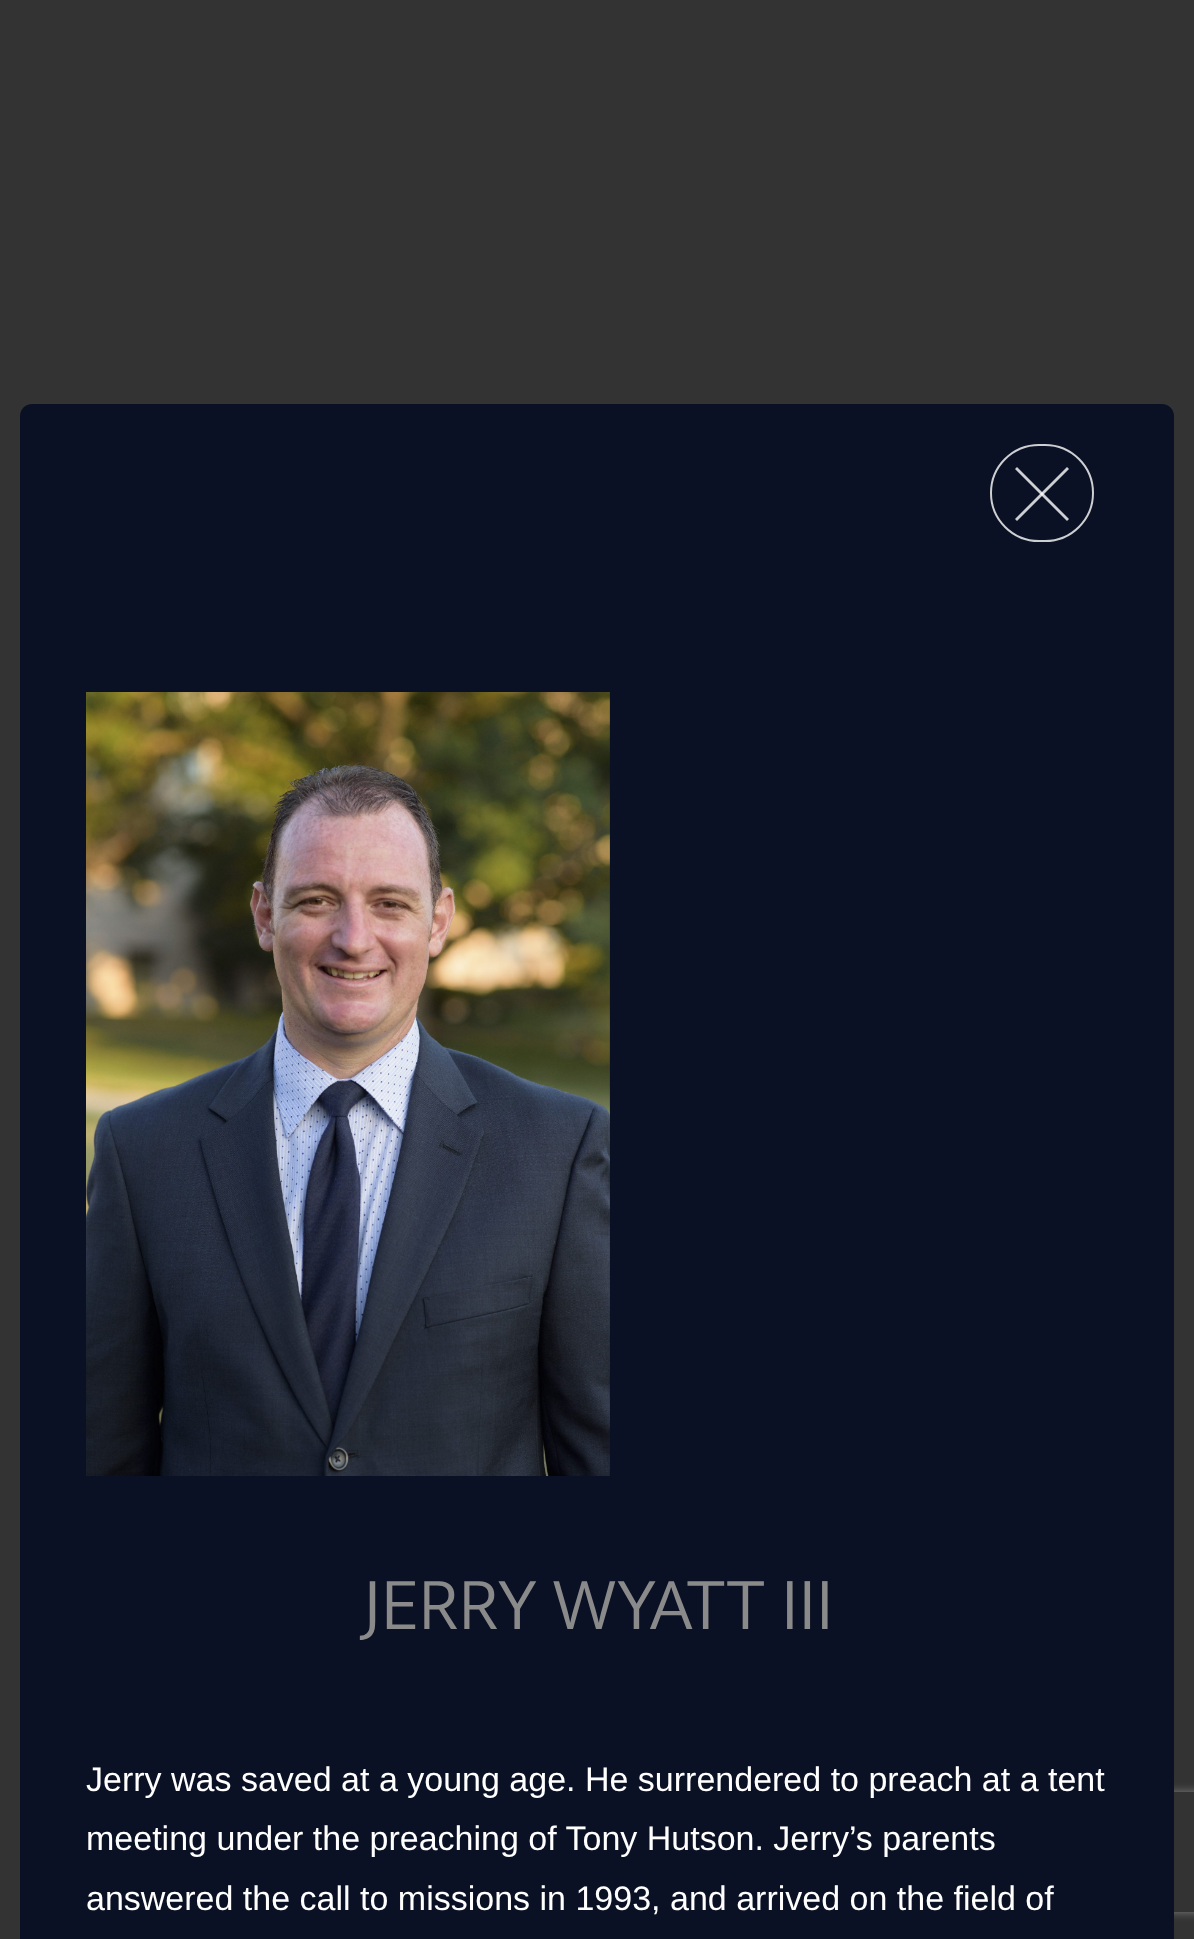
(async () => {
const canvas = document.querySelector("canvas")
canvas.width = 1194
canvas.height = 1939
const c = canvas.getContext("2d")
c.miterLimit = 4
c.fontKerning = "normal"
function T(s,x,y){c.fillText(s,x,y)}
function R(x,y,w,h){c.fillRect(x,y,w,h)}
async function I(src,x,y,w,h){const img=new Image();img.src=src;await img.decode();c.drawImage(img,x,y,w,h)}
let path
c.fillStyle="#333"
R(0,0,1194,1939)
c.save()
path = new Path2D("M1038 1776h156v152h-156zm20 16h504c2 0 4 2 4 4v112c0 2-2 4-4 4h-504c-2 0-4-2-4-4v-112c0-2 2-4 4-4z")
c.clip(path,"evenodd")
c.fillStyle="#808080"
c.filter="blur(5px)"
c.beginPath()
c.roundRect(1054,1792,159,120,4)
c.fill()
c.filter="none"
c.restore()
c.fillStyle="#0b1124"
path = new Path2D("M32 404h1130c6.5 0 12 5.5 12 12v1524h-1154v-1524c0-6.5 5.5-12 12-12z")
c.fill(path)
c.beginPath()
c.roundRect(991,445,102,96,48)
c.strokeStyle="#cecfd3"
c.lineWidth=2
c.stroke()
c.fillStyle="#cecfd3"
path = new Path2D("M1015 469l2-2l52 52l-2 2z")
c.fill(path)
c.fillStyle="#ffffffcc"
path = new Path2D("M1067 467l2 2l-52 52l-2-2z")
c.fill(path)
await I("1.png",86,692,524,784)
c.font="300 76px Ek Mukta"
c.fillStyle="#8a8a8a"
T("JERRY WYATT III",361,1629)
c.font="34px Liberation Sans"
c.fillStyle="#fff"
T("Jerry was saved at a young age. He surrendered to preach at a tent",86,1791)
T("meeting under the preaching of Tony Hutson. Jerry’s parents",86,1850)
T("answered the call to missions in 1993, and arrived on the field of",86,1910)
})()
